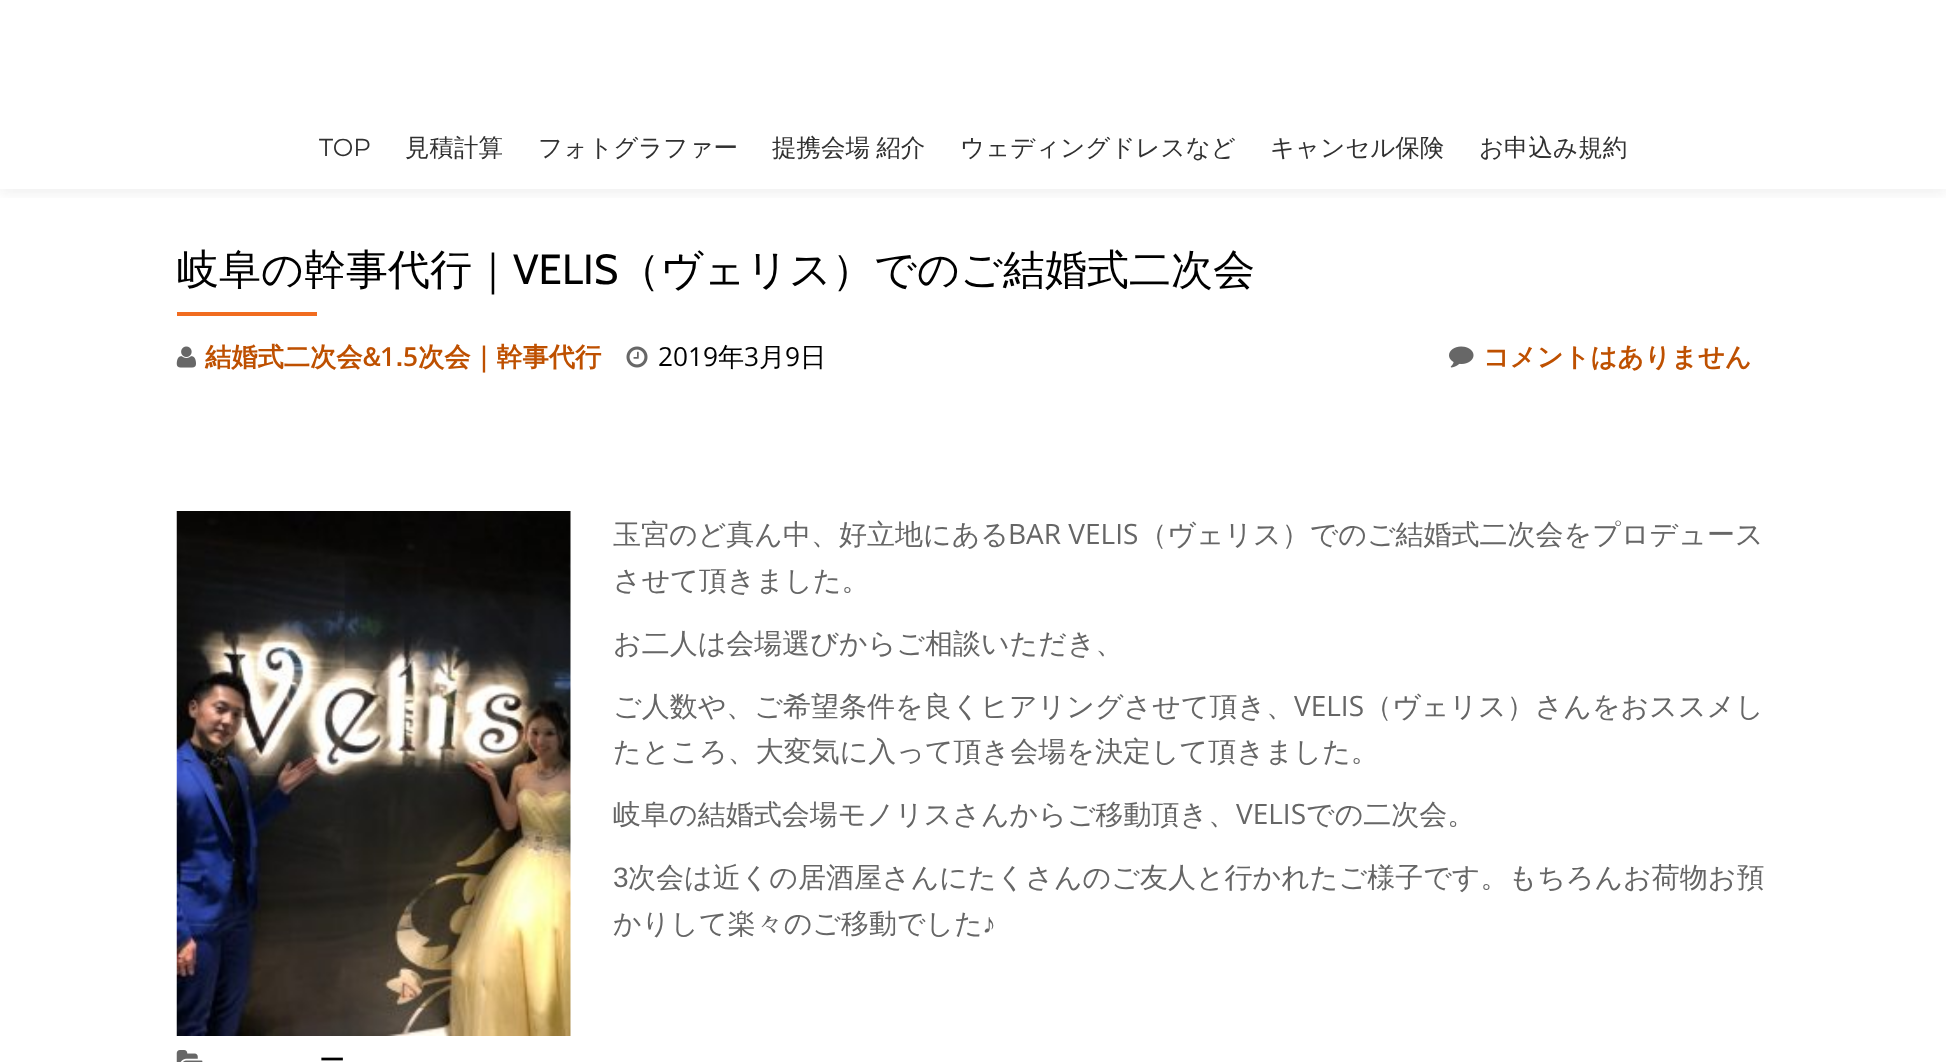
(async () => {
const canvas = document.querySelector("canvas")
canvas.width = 1946
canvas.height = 1062
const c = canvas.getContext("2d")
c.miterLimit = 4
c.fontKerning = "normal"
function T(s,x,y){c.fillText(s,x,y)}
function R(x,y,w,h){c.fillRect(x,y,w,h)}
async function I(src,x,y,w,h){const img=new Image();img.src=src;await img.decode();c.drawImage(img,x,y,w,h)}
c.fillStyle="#fff"
R(0,0,1946,1062)
c.save()
c.beginPath()
c.rect(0,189,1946,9)
c.clip()
c.fillStyle="#32323214"
c.filter="blur(7px)"
c.beginPath()
c.rect(0,-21,1946,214)
c.fill()
c.filter="none"
c.restore()
c.font="24.5px Montserrat"
c.fillStyle="#313131"
T("TOP",319,156)
c.font="500 24.5px WenQuanYi Zen Hei"
T("見積計算",405,156)
T("フォトグラファー",538,156)
c.wordSpacing="-1px"
T("提携会場 紹介",772,156)
c.wordSpacing="0px"
T("ウェディングドレスなど",960,156)
T("キャンセル保険",1270,156)
T("お申込み規約",1479,156)
c.font="500 42px WenQuanYi Zen Hei"
c.fillStyle="#000"
T("岐阜の幹事代行｜",177,284)
c.font="42px Cabin"
T("VELIS",513,284)
c.font="500 42px WenQuanYi Zen Hei"
T("（ヴェリス）でのご結婚式二次会",618,284)
c.fillStyle="#f16c20"
R(177,312,140,4)
await I("1.png",176,346,20,22)
c.font="bold 26.25px WenQuanYi Zen Hei"
c.fillStyle="#be5000"
T("結婚式二次会&",205,366)
c.font="600 26.25px Open Sans"
T("1",380,366)
c.font="bold 26.25px WenQuanYi Zen Hei"
T(".",395,366)
c.font="600 26.25px Open Sans"
T("5",403,366)
c.font="bold 26.25px WenQuanYi Zen Hei"
T("次会｜幹事代行",418,366)
await I("2.png",626,346,22,22)
c.font="26.25px Open Sans"
c.fillStyle="#000"
T("2019",658,366)
c.font="500 26.25px WenQuanYi Zen Hei"
T("年",718,366)
c.font="26.25px Open Sans"
T("3",744,366)
c.font="500 26.25px WenQuanYi Zen Hei"
T("月",759,366)
c.font="26.25px Open Sans"
T("9",785,366)
c.font="500 26.25px WenQuanYi Zen Hei"
T("日",800,366)
await I("3.png",1449,346,25,22)
c.font="bold 26.25px WenQuanYi Zen Hei"
c.fillStyle="#be5000"
T("コメントはありません",1483,366)
await I("4.png",176,511,395,525)
c.font="500 28px WenQuanYi Zen Hei"
c.fillStyle="#666"
T("玉宮のど真ん中、好立地にある",613,544)
c.font="28px Open Sans"
T("BAR VELIS",1008,544)
c.font="500 28px WenQuanYi Zen Hei"
T("（ヴェリス）でのご結婚式二次会をプロデュース",1139,544)
T("させて頂きました。",613,590)
T("お二人は会場選びからご相談いただき、",613,653)
T("ご人数や、ご希望条件を良くヒアリングさせて頂き、",613,716)
c.font="28px Open Sans"
T("VELIS",1294,716)
c.font="500 28px WenQuanYi Zen Hei"
T("（ヴェリス）さんをおススメし",1364,716)
T("たところ、大変気に入って頂き会場を決定して頂きました。",613,761)
T("岐阜の結婚式会場モノリスさんからご移動頂き、",613,824)
c.font="28px Open Sans"
T("VELIS",1236,824)
c.font="500 28px WenQuanYi Zen Hei"
T("での二次会。",1306,824)
c.font="28px Liberation Sans"
T("3",613,887)
c.font="500 28px WenQuanYi Zen Hei"
T("次会は近くの居酒屋さんにたくさんのご友人と行かれたご様子です。もちろんお荷物お預",628,887)
T("かりして楽々のご移動でした",613,933)
c.font="28px Liberation Sans"
T("♪",982,933)
await I("5.png",176,1050,27,12)
c.font="500 26.25px WenQuanYi Zen Hei"
c.fillStyle="#000"
T("ー",319,1069)
})()
